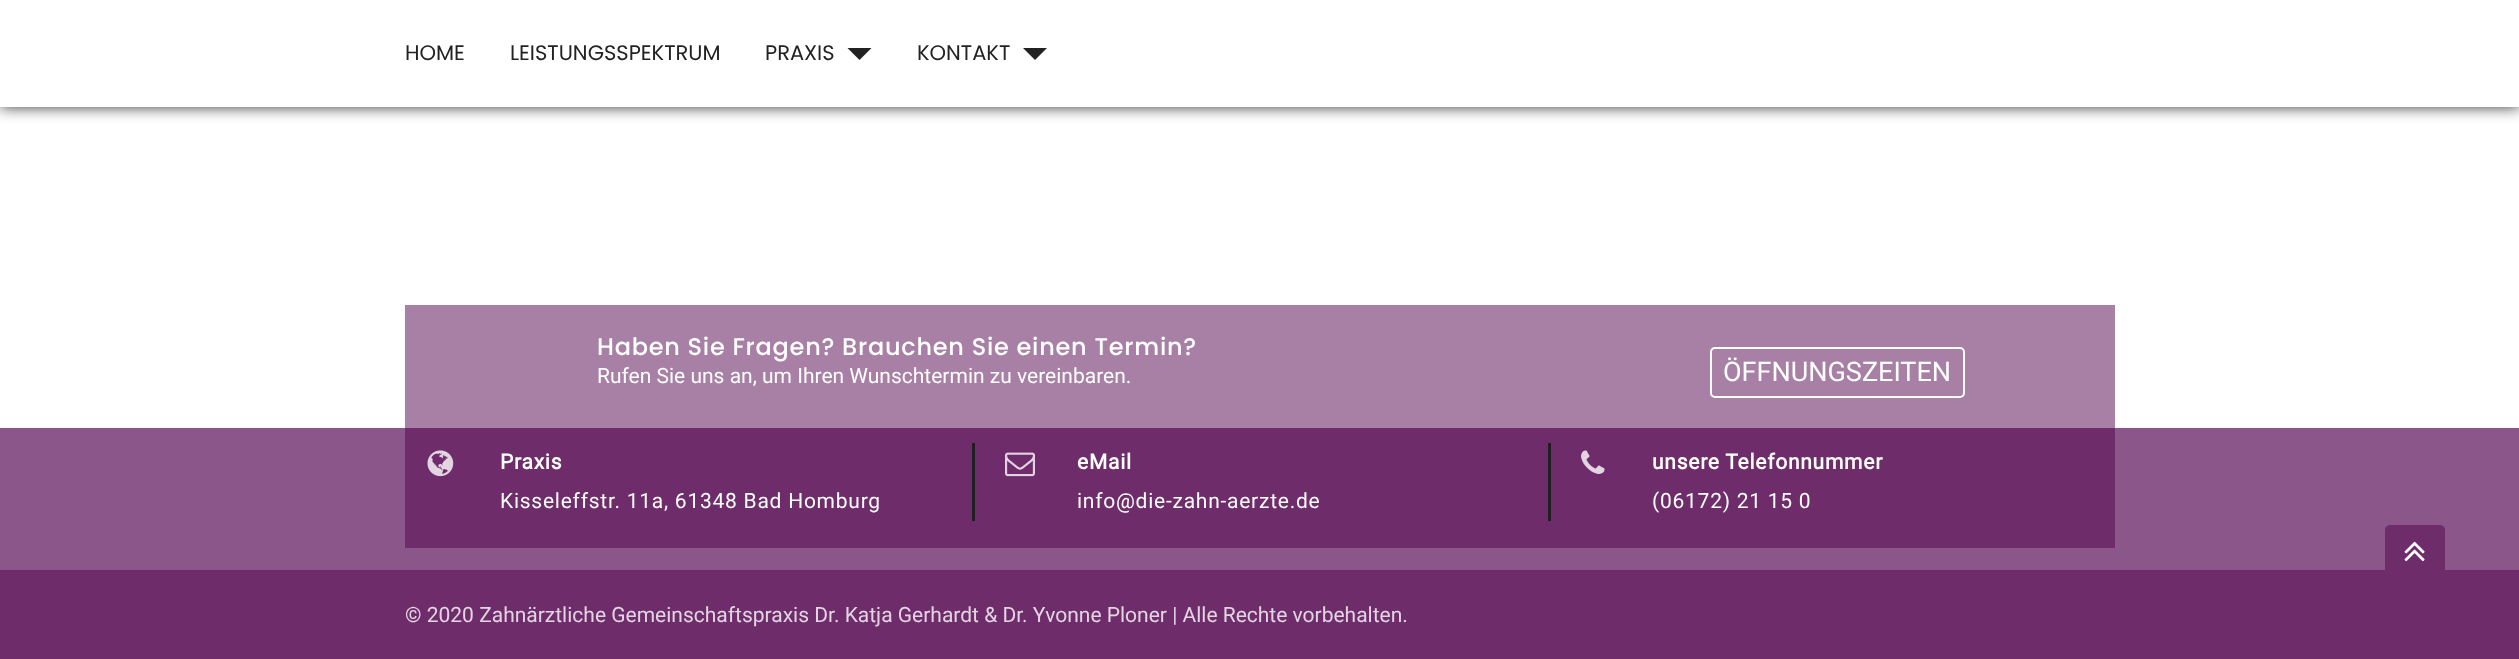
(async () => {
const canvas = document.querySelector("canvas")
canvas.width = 2519
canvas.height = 659
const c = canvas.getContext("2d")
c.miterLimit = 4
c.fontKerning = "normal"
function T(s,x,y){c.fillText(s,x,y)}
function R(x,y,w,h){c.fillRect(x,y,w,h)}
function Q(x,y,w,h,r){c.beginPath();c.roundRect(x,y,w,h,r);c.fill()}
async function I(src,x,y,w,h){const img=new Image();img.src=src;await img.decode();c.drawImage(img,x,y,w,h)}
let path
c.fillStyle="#fff"
R(0,0,2519,659)
c.fillStyle="#333"
c.filter="blur(7.5px)"
c.beginPath()
c.rect(0,0,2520,107)
c.fill()
c.filter="none"
c.fillStyle="#fff"
R(0,0,2519,107)
c.font="21px Poppins"
c.fillStyle="#222"
T("HOME",405,60)
T("LEISTUNGSSPEKTRUM",510,60)
T("PRAXIS",765,60)
path = new Path2D("M847.5 48h24l-12 12z")
c.fill(path)
T("KONTAKT",917,60)
path = new Path2D("M1023 48h24l-12 12z")
c.fill(path)
c.fillStyle="#a880a6"
R(405,305,1710,123)
c.letterSpacing="0.75px"
c.font="500 24px Poppins"
c.fillStyle="#fff"
T("Haben Sie Fragen? Brauchen Sie einen Termin?",597,355)
c.letterSpacing="0px"
c.font="21px Roboto"
T("Rufen Sie uns an, um Ihren Wunschtermin zu vereinbaren.",597,383)
c.beginPath()
c.roundRect(1711,348,253,49,4)
c.strokeStyle="#fff"
c.lineWidth=2
c.stroke()
c.font="27px Roboto"
T("ÖFFNUNGSZEITEN",1723,381)
c.fillStyle="#8b5689"
R(0,428,2519,142)
c.fillStyle="#6e2c6b"
R(405,428,1710,120)
await I("1.png",427,450,27,27)
c.letterSpacing="0.75px"
c.font="bold 21px Roboto"
c.fillStyle="#fff"
T("Praxis",500,469)
c.font="21px Roboto"
T("Kisseleffstr. 11a, 61348 Bad Homburg",500,508)
c.fillStyle="#1f1f1f"
R(972,443,3,78)
await I("2.png",1005,452,30,25)
c.font="bold 21px Roboto"
c.fillStyle="#fff"
T("eMail",1077,469)
c.font="21px Roboto"
T("info@die-zahn-aerzte.de",1077,508)
c.fillStyle="#1f1f1f"
R(1548,443,3,78)
await I("3.png",1581,450,24,24)
c.font="bold 21px Roboto"
c.fillStyle="#fff"
T("unsere Telefonnummer",1652,469)
c.font="21px Roboto"
T("(06172) 21 15 0",1652,508)
c.fillStyle="#6e2c6b"
R(0,570,2519,89)
Q(2385,525,60,60,5)
await I("4.png",2404,541,21,21)
c.letterSpacing="0px"
c.fillStyle="#e2d5e1"
T("© 2020 Zahnärztliche Gemeinschaftspraxis Dr. Katja Gerhardt & Dr. Yvonne Ploner | Alle Rechte vorbehalten.",405,622)
})()
